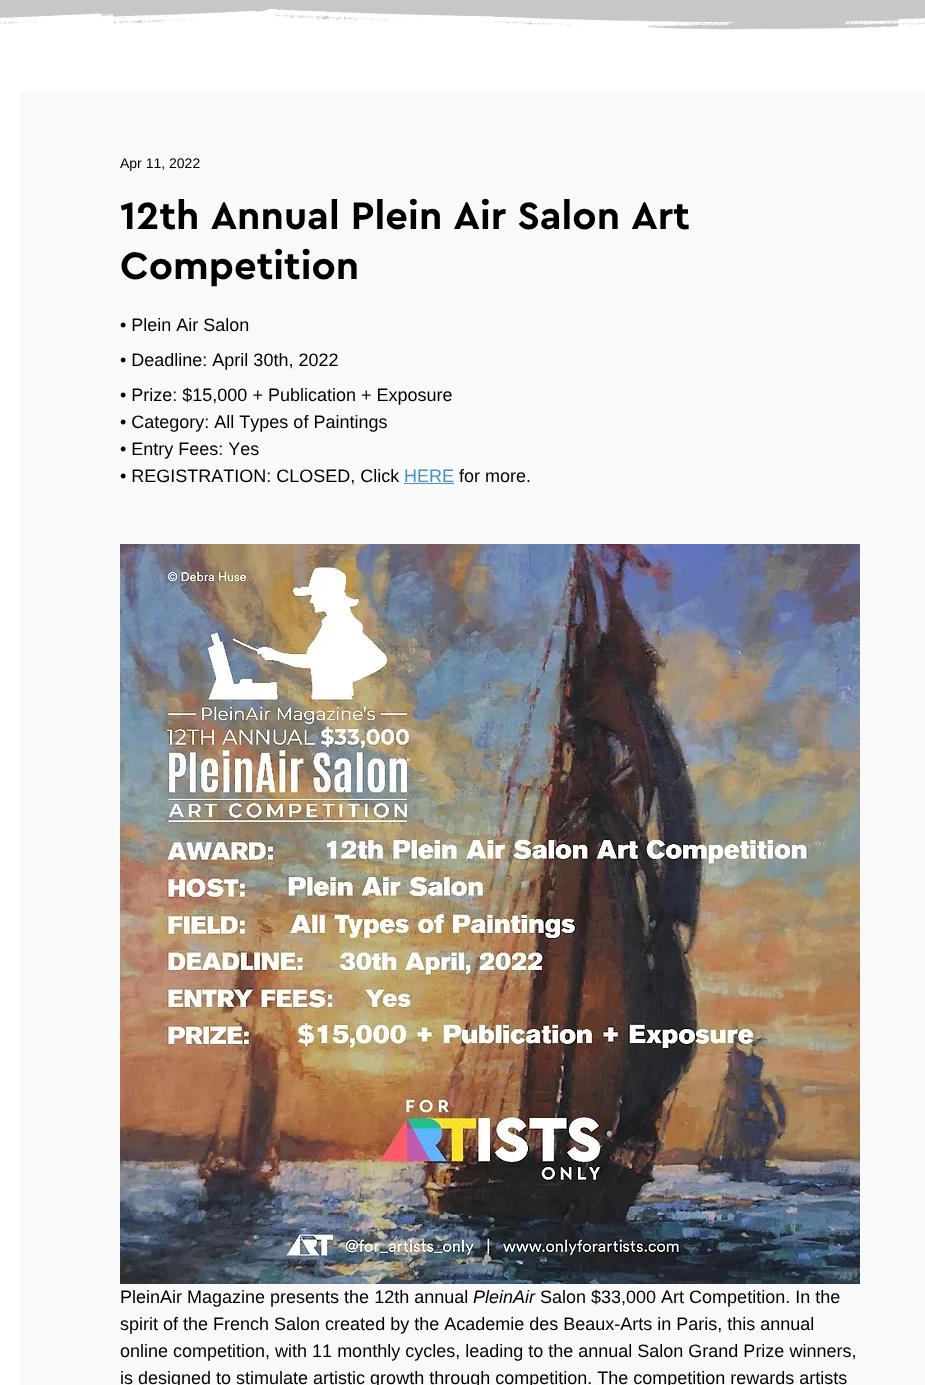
(async () => {
const canvas = document.querySelector("canvas")
canvas.width = 925
canvas.height = 1385
const c = canvas.getContext("2d")
c.miterLimit = 4
c.fontKerning = "none"
function T(s,x,y){c.fillText(s,x,y)}
function R(x,y,w,h){c.fillRect(x,y,w,h)}
async function I(src,x,y,w,h){const img=new Image();img.src=src;await img.decode();c.drawImage(img,x,y,w,h)}
c.fillStyle="#c7c7c7"
R(0,0,925,1385)
await I("1.png",0,9,925,39)
c.fillStyle="#fff"
R(0,48,925,1337)
c.fillStyle="#f9f9f9"
c.beginPath()
c.rect(20.5,92.5,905,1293)
c.fill()
c.strokeStyle="#f6f6f6"
c.stroke()
c.font="14px Liberation Sans"
c.fillStyle="#000"
T("Apr 11, 2022",120,168)
c.font="bold 40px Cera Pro"
T("12th Annual Plein Air Salon Art",120,229)
T("Competition",120,279)
c.font="18px Liberation Sans"
T("• Plein Air Salon",120,331)
T("• Deadline: April 30th, 2022",120,366)
T("• Prize: $15,000 + Publication + Exposure",120,401)
T("• Category: All Types of Paintings",120,428)
T("• Entry Fees: Yes",120,455)
T("• REGISTRATION: CLOSED, Click",120,482)
c.fillStyle="#4692c4"
T("HERE",404,482)
R(404,483,50,1)
c.fillStyle="#000"
T("for more.",459,482)
await I("2.png",120,544,740,740)
T("PleinAir Magazine presents the 12th annual",120,1303)
c.font="italic 18px Liberation Sans"
T("PleinAir",473,1303)
c.font="18px Liberation Sans"
T("Salon $33,000 Art Competition. In the",540,1303)
T("spirit of the French Salon created by the Academie des Beaux-Arts in Paris, this annual",120,1330)
T("online competition, with 11 monthly cycles, leading to the annual Salon Grand Prize winners,",120,1357)
T("is designed to stimulate artistic growth through competition. The competition rewards artists",120,1384)
})()
